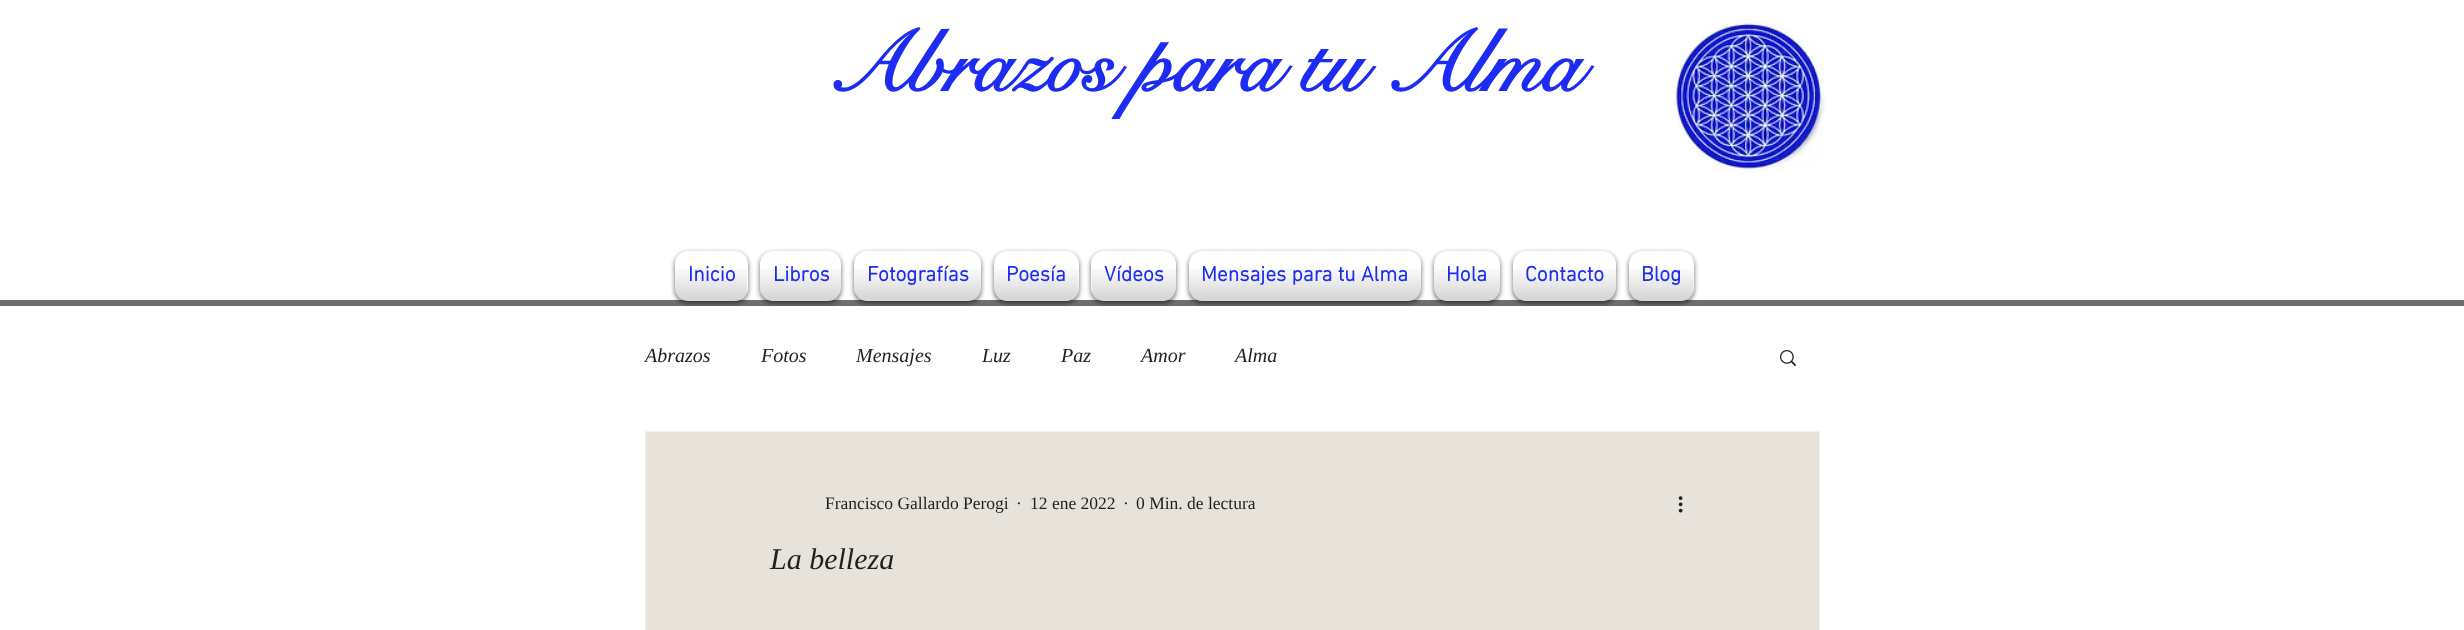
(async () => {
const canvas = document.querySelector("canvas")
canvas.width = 2464
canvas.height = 630
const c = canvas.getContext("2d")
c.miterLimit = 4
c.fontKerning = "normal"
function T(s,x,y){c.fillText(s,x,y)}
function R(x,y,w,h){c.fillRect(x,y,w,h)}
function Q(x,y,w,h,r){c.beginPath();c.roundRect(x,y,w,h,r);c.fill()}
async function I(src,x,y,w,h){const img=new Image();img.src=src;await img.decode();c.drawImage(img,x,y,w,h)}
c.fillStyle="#fff"
R(0,0,2464,630)
c.font="bold 86.25px 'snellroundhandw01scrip'"
c.fillStyle="#1d2cf3"
T("Abrazos para tu Alma",826,91)
await I("1.png",1672,20,153,151)
c.fillStyle="#6e6e6e"
R(0,300,2464,6)
c.fillStyle="#00000099"
c.filter="blur(2.5px)"
c.beginPath()
c.roundRect(675,253,73,50,13)
c.fill()
c.filter="none"
c.fillStyle="#fff"
Q(675,251,73,50,13)
await I("2.png",675,269,72,32)
c.font="bold 21.25px 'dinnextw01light'"
c.fillStyle="#1d2cf3"
T("Inicio",688,281)
c.fillStyle="#00000099"
c.filter="blur(2.5px)"
c.beginPath()
c.roundRect(760,253,81,50,13)
c.fill()
c.filter="none"
c.fillStyle="#fff"
Q(760,251,81,50,13)
await I("3.png",760,269,81,32)
c.fillStyle="#1d2cf3"
T("Libros",773,281)
c.fillStyle="#00000099"
c.filter="blur(2.5px)"
c.beginPath()
c.roundRect(854,253,127,50,13)
c.fill()
c.filter="none"
c.fillStyle="#fff"
Q(854,251,127,50,13)
await I("4.png",854,269,127,32)
c.fillStyle="#1d2cf3"
T("Fotografías",867,281)
c.fillStyle="#00000099"
c.filter="blur(2.5px)"
c.beginPath()
c.roundRect(994,253,85,50,13)
c.fill()
c.filter="none"
c.fillStyle="#fff"
Q(994,251,85,50,13)
await I("5.png",994,269,85,32)
c.fillStyle="#1d2cf3"
T("Poesía",1006,281)
c.fillStyle="#00000099"
c.filter="blur(2.5px)"
c.beginPath()
c.roundRect(1091,253,85,50,13)
c.fill()
c.filter="none"
c.fillStyle="#fff"
Q(1091,251,85,50,13)
await I("6.png",1091,269,85,32)
c.fillStyle="#1d2cf3"
T("Vídeos",1104,281)
c.fillStyle="#00000099"
c.filter="blur(2.5px)"
c.beginPath()
c.roundRect(1189,253,232,50,13)
c.fill()
c.filter="none"
c.fillStyle="#fff"
Q(1189,251,232,50,13)
await I("7.png",1189,269,232,32)
c.fillStyle="#1d2cf3"
T("Mensajes para tu Alma",1201,281)
c.fillStyle="#00000099"
c.filter="blur(2.5px)"
c.beginPath()
c.roundRect(1434,253,66,50,13)
c.fill()
c.filter="none"
c.fillStyle="#fff"
Q(1434,251,66,50,13)
await I("8.png",1434,269,66,32)
c.fillStyle="#1d2cf3"
T("Hola",1446,281)
c.fillStyle="#00000099"
c.filter="blur(2.5px)"
c.beginPath()
c.roundRect(1513,253,103,50,13)
c.fill()
c.filter="none"
c.fillStyle="#fff"
Q(1513,251,103,50,13)
await I("9.png",1513,269,103,32)
c.fillStyle="#1d2cf3"
T("Contacto",1525,281)
c.fillStyle="#00000099"
c.filter="blur(2.5px)"
c.beginPath()
c.roundRect(1629,253,65,50,13)
c.fill()
c.filter="none"
c.fillStyle="#fff"
Q(1629,251,65,50,13)
await I("10.png",1629,269,65,32)
c.fillStyle="#1d2cf3"
T("Blog",1641,281)
c.fillStyle="#fff"
R(681,306,1007,2)
c.font="italic 20px Liberation Serif"
c.fillStyle="#1f1f1f"
T("Abrazos",645,362)
T("Fotos",761,362)
T("Mensajes",856,362)
T("Luz",982,362)
T("Paz",1061,362)
T("Amor",1141,362)
T("Alma",1235,362)
await I("11.png",1780,350,16,16)
c.fillStyle="#e8e3da"
c.beginPath()
c.rect(645.5,431.5,1174,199)
c.fill()
c.strokeStyle="#f3f1ef"
c.stroke()
c.font="17.5px Liberation Serif"
c.fillStyle="#1f1f1f"
T("Francisco Gallardo Perogi",825,509)
T("·",1016,509)
T("12 ene 2022",1030,509)
T("·",1123,509)
T("0 Min. de lectura",1136,509)
await I("12.png",1678,496,5,17)
c.font="italic 30px Liberation Serif"
T("La belleza",770,569)
})()
